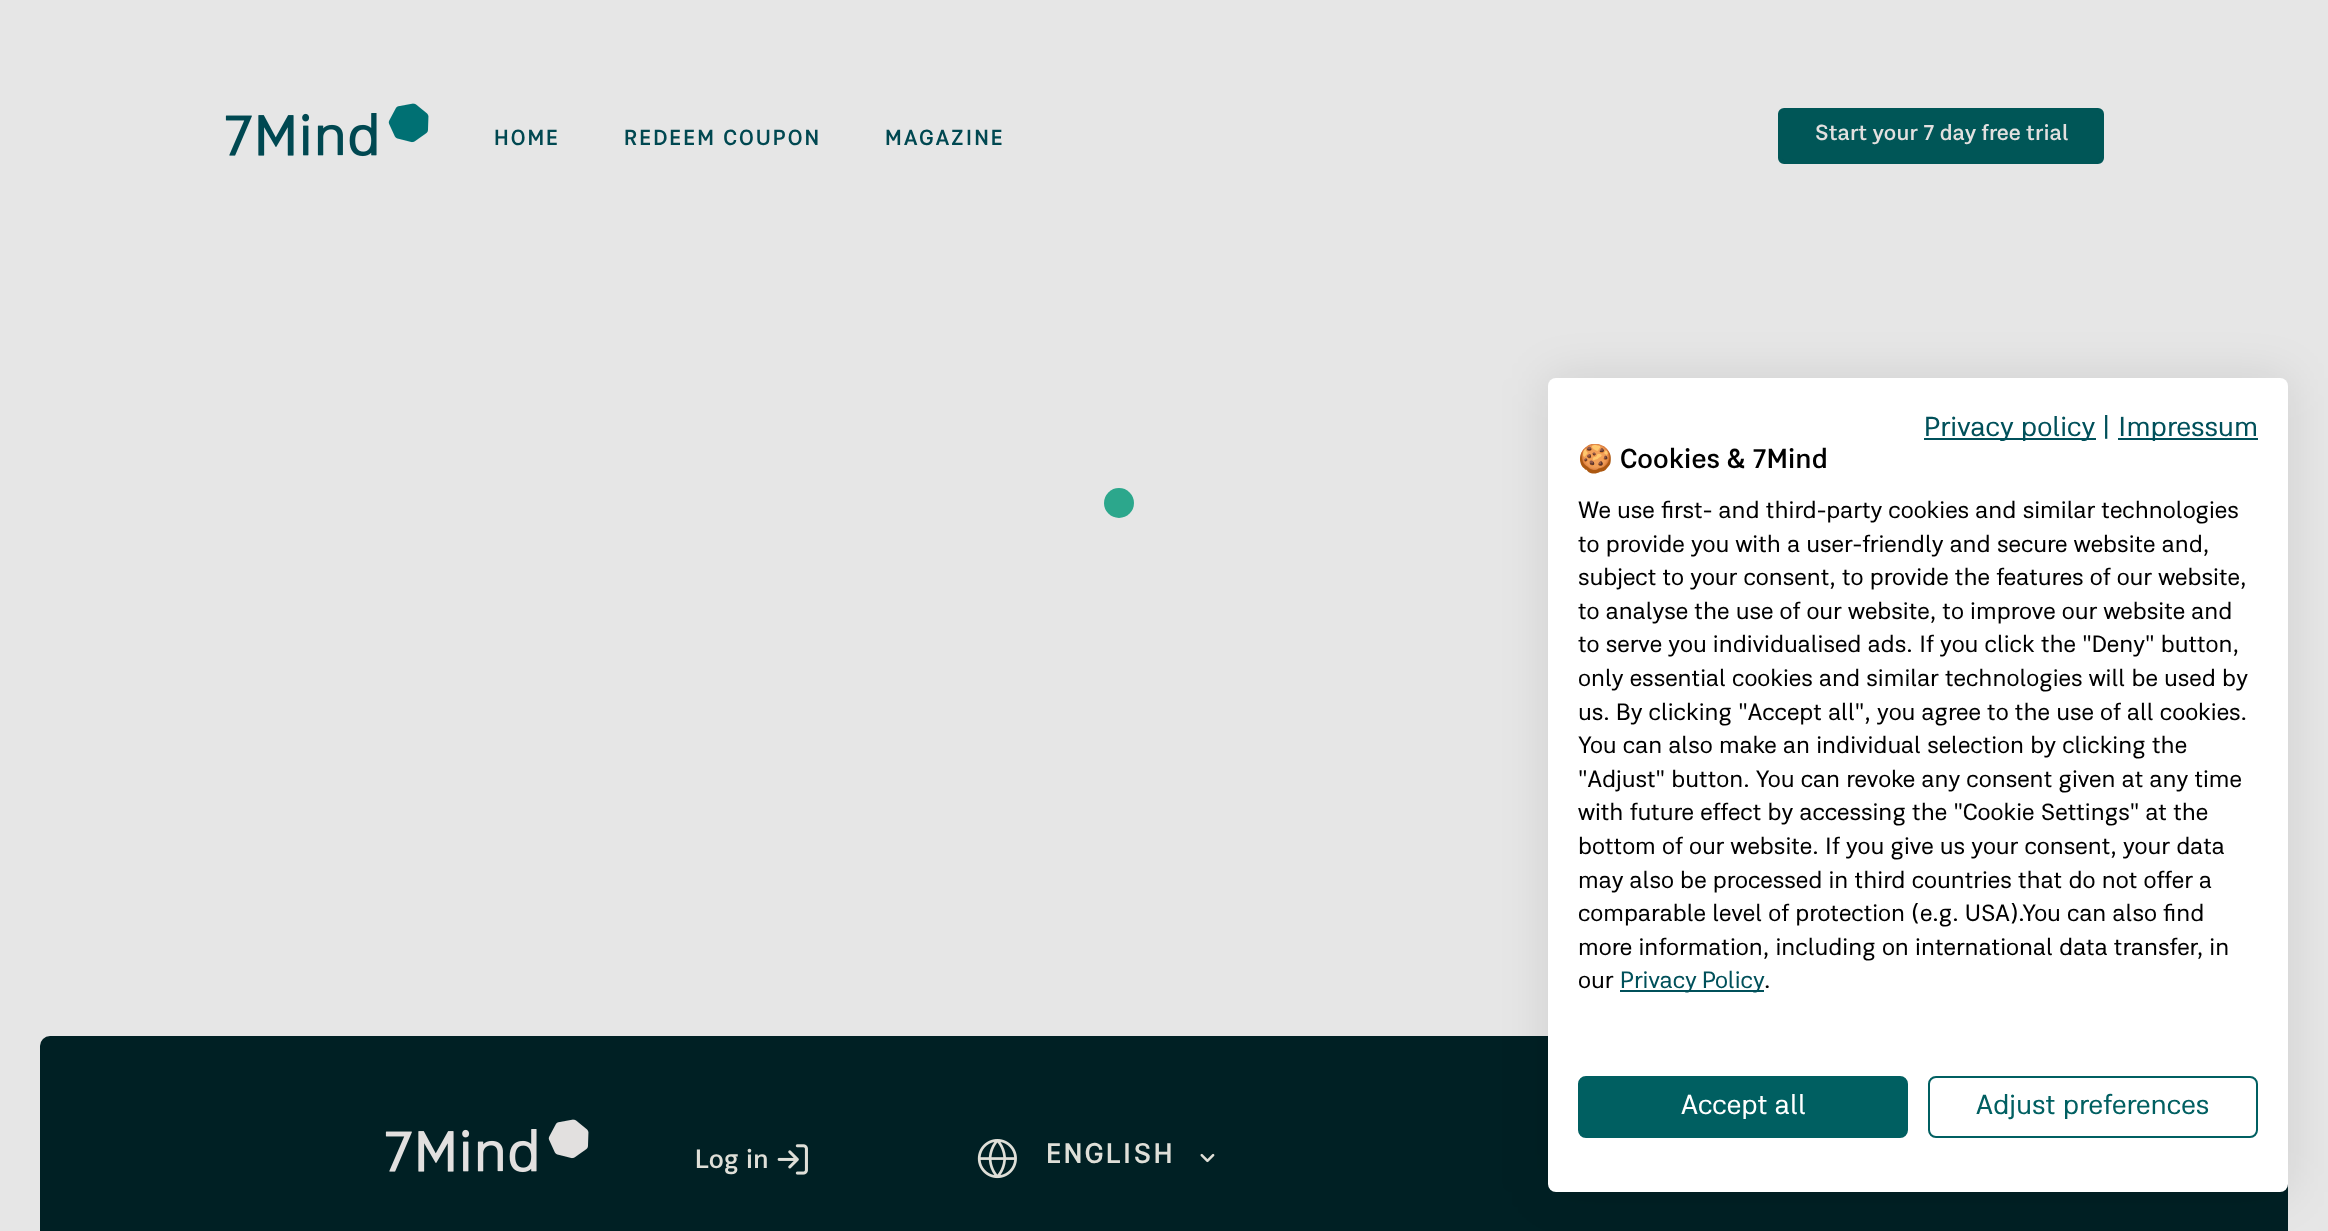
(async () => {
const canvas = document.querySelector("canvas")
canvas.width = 2328
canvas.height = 1231
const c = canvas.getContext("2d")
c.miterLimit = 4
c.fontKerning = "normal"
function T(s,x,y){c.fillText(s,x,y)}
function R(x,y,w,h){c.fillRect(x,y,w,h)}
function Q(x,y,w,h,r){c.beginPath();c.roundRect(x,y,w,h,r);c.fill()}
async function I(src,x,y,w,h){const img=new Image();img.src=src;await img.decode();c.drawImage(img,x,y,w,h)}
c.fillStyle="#e6e6e6"
R(0,0,2328,1231)
await I("1.png",225,103,204,54)
c.letterSpacing="2px"
c.font="600 22.25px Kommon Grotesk"
c.fillStyle="#004851"
T("HOME",494,145)
T("REDEEM COUPON",624,145)
T("MAGAZINE",885,145)
c.fillStyle="#005657"
c.beginPath()
c.roundRect(1780,110,322,52,4)
c.fill()
c.strokeStyle="#005657"
c.lineWidth=4
c.stroke()
c.letterSpacing="0px"
c.fillStyle="#e2e0df"
T("Start your 7 day free trial",1815,140)
c.fillStyle="#2ca78c"
c.beginPath()
c.arc(1119,503,15,0,7)
c.fill()
c.fillStyle="#002024"
Q(40,1036,2248,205,10)
await I("2.png",385,1119,204,54)
c.font="600 27px Kommon Grotesk"
c.fillStyle="#dfdfd8"
T("Log in",695,1168)
await I("3.png",777,1144,31,31)
await I("4.png",977,1139,40,40)
c.letterSpacing="2px"
c.font="600 29px Kommon Grotesk"
T("ENGLISH",1046,1163)
await I("5.png",1200,1153,15,10)
c.fillStyle="#0000001a"
c.filter="blur(24px)"
c.beginPath()
c.roundRect(1548,378,740,814,8)
c.fill()
c.filter="none"
c.fillStyle="#fff"
Q(1548,378,740,814,8)
c.fillStyle="#00505a"
R(1924,438,172,2)
c.letterSpacing="0px"
c.font="28px Kommon Grotesk"
T("Privacy policy |",1924,436)
R(2118,438,140,2)
T("Impressum",2118,436)
c.save()
c.beginPath()
c.rect(1548,444,740,572)
c.clip()
c.font="bold 28px Noto Color Emoji"
c.fillStyle="#000"
T("🍪",1578,468)
c.restore()
c.font="600 28px Kommon Grotesk"
c.fillStyle="#000"
T("Cookies & 7Mind",1620,468)
c.font="24px Kommon Grotesk"
T("We use first- and third-party cookies and similar technologies",1578,518)
T("to provide you with a user-friendly and secure website and,",1578,552)
T("subject to your consent, to provide the features of our website,",1578,585)
T("to analyse the use of our website, to improve our website and",1578,619)
T("to serve you individualised ads. If you click the \"Deny\" button,",1578,652)
T("only essential cookies and similar technologies will be used by",1578,686)
T("us. By clicking \"Accept all\", you agree to the use of all cookies.",1578,720)
T("You can also make an individual selection by clicking the",1578,753)
T("\"Adjust\" button. You can revoke any consent given at any time",1578,787)
T("with future effect by accessing the \"Cookie Settings\" at the",1578,820)
T("bottom of our website. If you give us your consent, your data",1578,854)
T("may also be processed in third countries that do not offer a",1578,888)
T("comparable level of protection (e.g. USA).You can also find",1578,921)
T("more information, including on international data transfer, in",1578,955)
T("our",1578,988)
c.fillStyle="#00505a"
R(1620,990,144,2)
c.wordSpacing="-1px"
T("Privacy Policy",1620,988)
c.wordSpacing="0px"
c.fillStyle="#000"
T(".",1764,988)
c.fillStyle="#005f61"
c.beginPath()
c.roundRect(1579,1077,328,60,7)
c.fill()
c.strokeStyle="#005f61"
c.lineWidth=2
c.stroke()
c.font="28px Kommon Grotesk"
c.fillStyle="#fff"
T("Accept all",1681,1114)
c.beginPath()
c.roundRect(1929,1077,328,60,7)
c.stroke()
c.fillStyle="#005f61"
T("Adjust preferences",1976,1114)
})()
